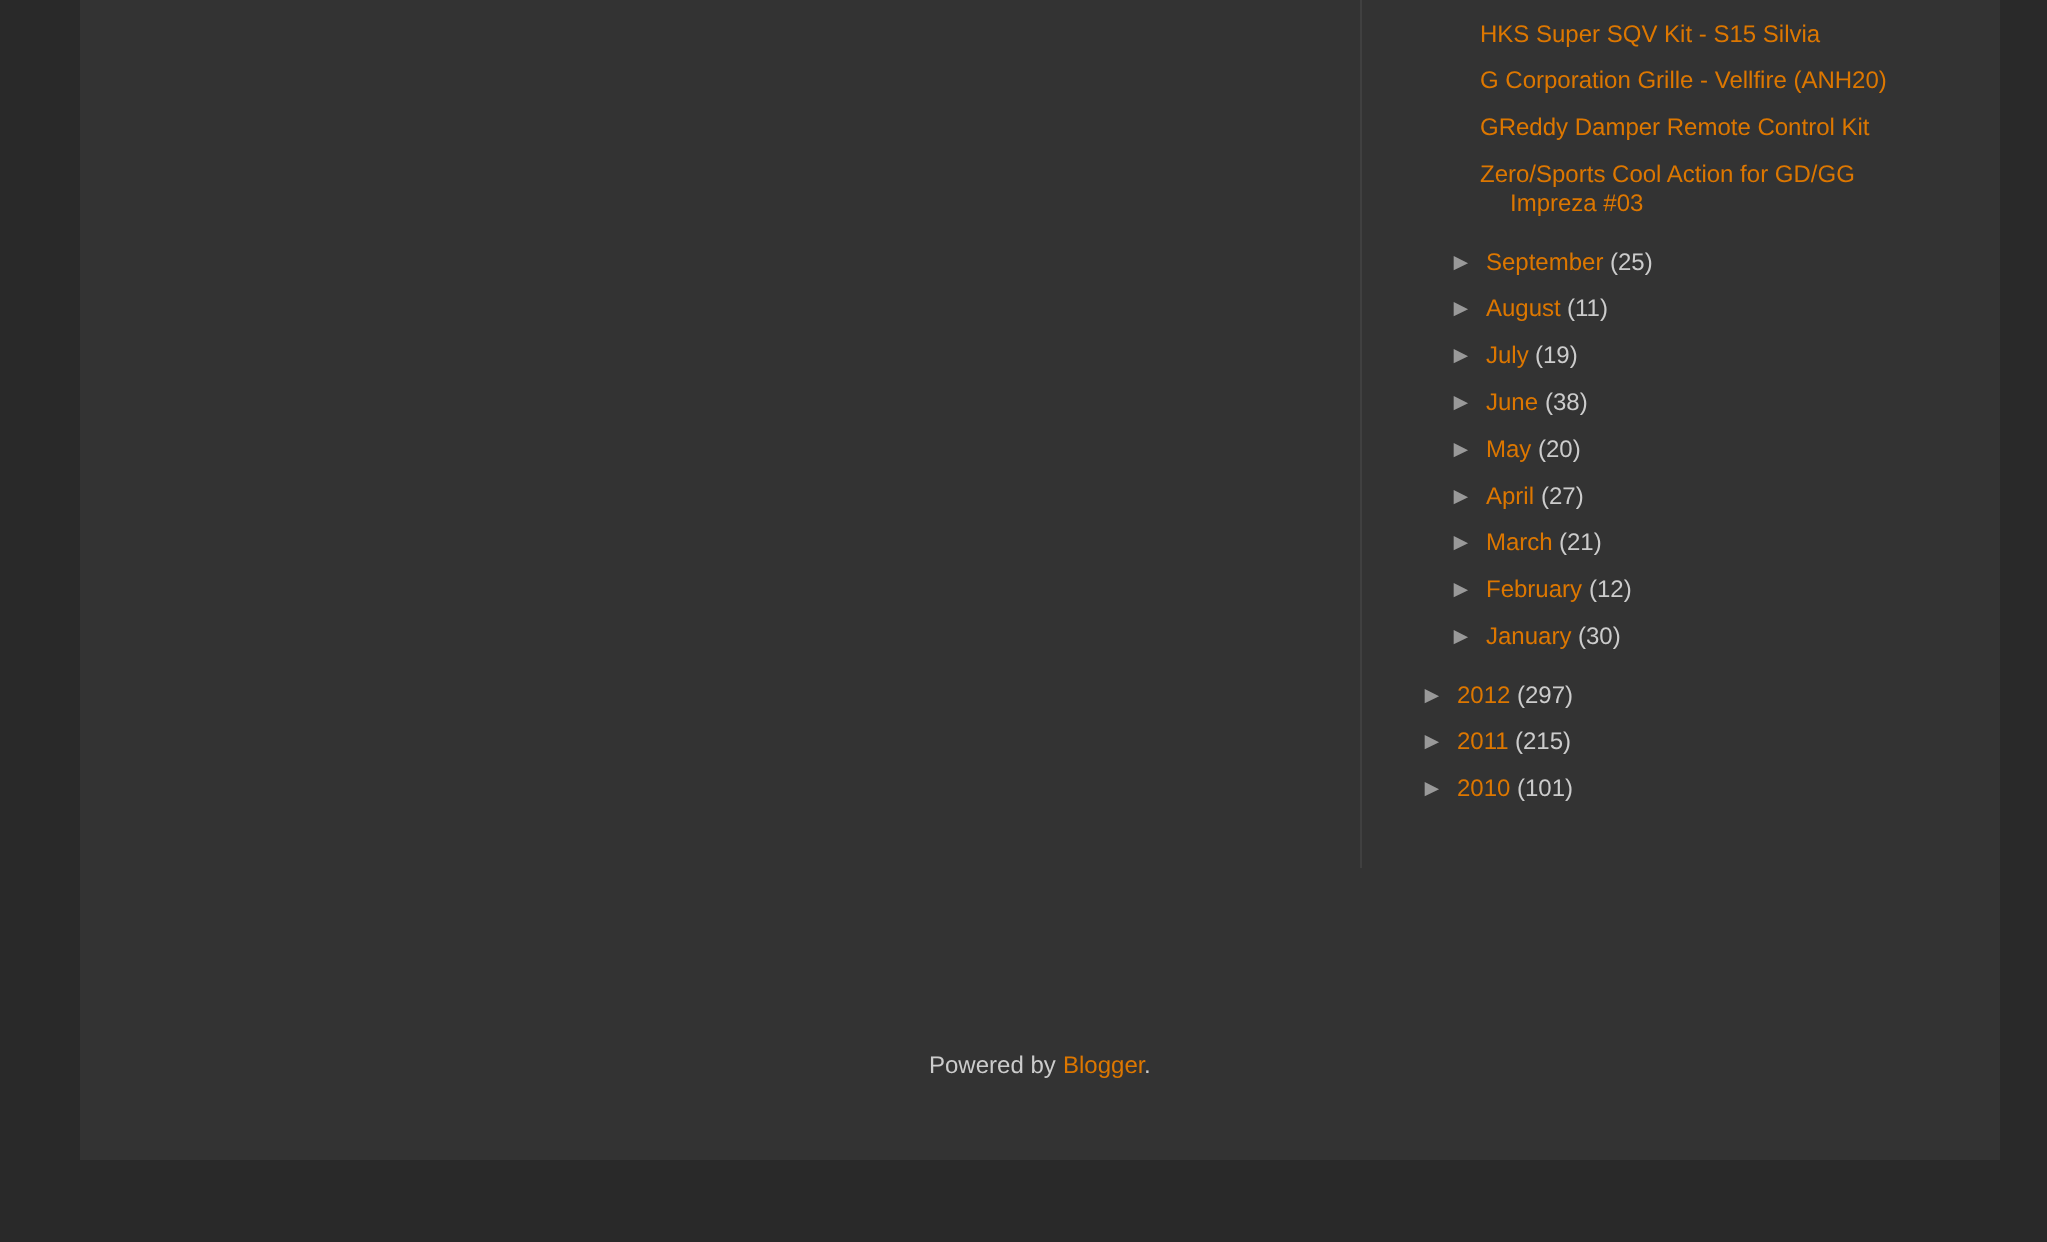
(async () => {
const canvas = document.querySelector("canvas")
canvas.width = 2047
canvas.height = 1242
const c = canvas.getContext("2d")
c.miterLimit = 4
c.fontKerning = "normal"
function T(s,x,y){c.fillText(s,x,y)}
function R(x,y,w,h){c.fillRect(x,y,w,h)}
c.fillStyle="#292929"
R(0,0,2047,1242)
c.fillStyle="#333"
R(80,0,1920,1160)
c.fillStyle="#404040"
R(1360,0,2,868)
c.font="24px Liberation Sans"
c.fillStyle="#d70"
T("HKS Super SQV Kit - S15 Silvia",1480,42)
T("G Corporation Grille - Vellfire (ANH20)",1480,88)
T("GReddy Damper Remote Control Kit",1480,135)
T("Zero/Sports Cool Action for GD/GG",1480,182)
T("Impreza #03",1510,211)
c.fillStyle="#999"
T("►",1449,270)
c.fillStyle="#d70"
T("September",1486,270)
c.fillStyle="#ccc"
T("(25)",1610,270)
c.fillStyle="#999"
T("►",1449,316)
c.fillStyle="#d70"
T("August",1486,316)
c.fillStyle="#ccc"
T("(11)",1567,316)
c.fillStyle="#999"
T("►",1449,363)
c.fillStyle="#d70"
T("July",1486,363)
c.fillStyle="#ccc"
T("(19)",1535,363)
c.fillStyle="#999"
T("►",1449,410)
c.fillStyle="#d70"
T("June",1486,410)
c.fillStyle="#ccc"
T("(38)",1545,410)
c.fillStyle="#999"
T("►",1449,457)
c.fillStyle="#d70"
T("May",1486,457)
c.fillStyle="#ccc"
T("(20)",1538,457)
c.fillStyle="#999"
T("►",1449,504)
c.fillStyle="#d70"
T("April",1486,504)
c.fillStyle="#ccc"
T("(27)",1541,504)
c.fillStyle="#999"
T("►",1449,550)
c.fillStyle="#d70"
T("March",1486,550)
c.fillStyle="#ccc"
T("(21)",1559,550)
c.fillStyle="#999"
T("►",1449,597)
c.fillStyle="#d70"
T("February",1486,597)
c.fillStyle="#ccc"
T("(12)",1589,597)
c.fillStyle="#999"
T("►",1449,644)
c.fillStyle="#d70"
T("January",1486,644)
c.fillStyle="#ccc"
T("(30)",1578,644)
c.fillStyle="#999"
T("►",1420,703)
c.fillStyle="#d70"
T("2012",1457,703)
c.fillStyle="#ccc"
T("(297)",1517,703)
c.fillStyle="#999"
T("►",1420,749)
c.fillStyle="#d70"
T("2011",1457,749)
c.fillStyle="#ccc"
T("(215)",1515,749)
c.fillStyle="#999"
T("►",1420,796)
c.fillStyle="#d70"
T("2010",1457,796)
c.fillStyle="#ccc"
T("(101)",1517,796)
T("Powered by",929,1073)
c.fillStyle="#d70"
T("Blogger",1063,1073)
c.fillStyle="#ccc"
T(".",1144,1073)
})()
